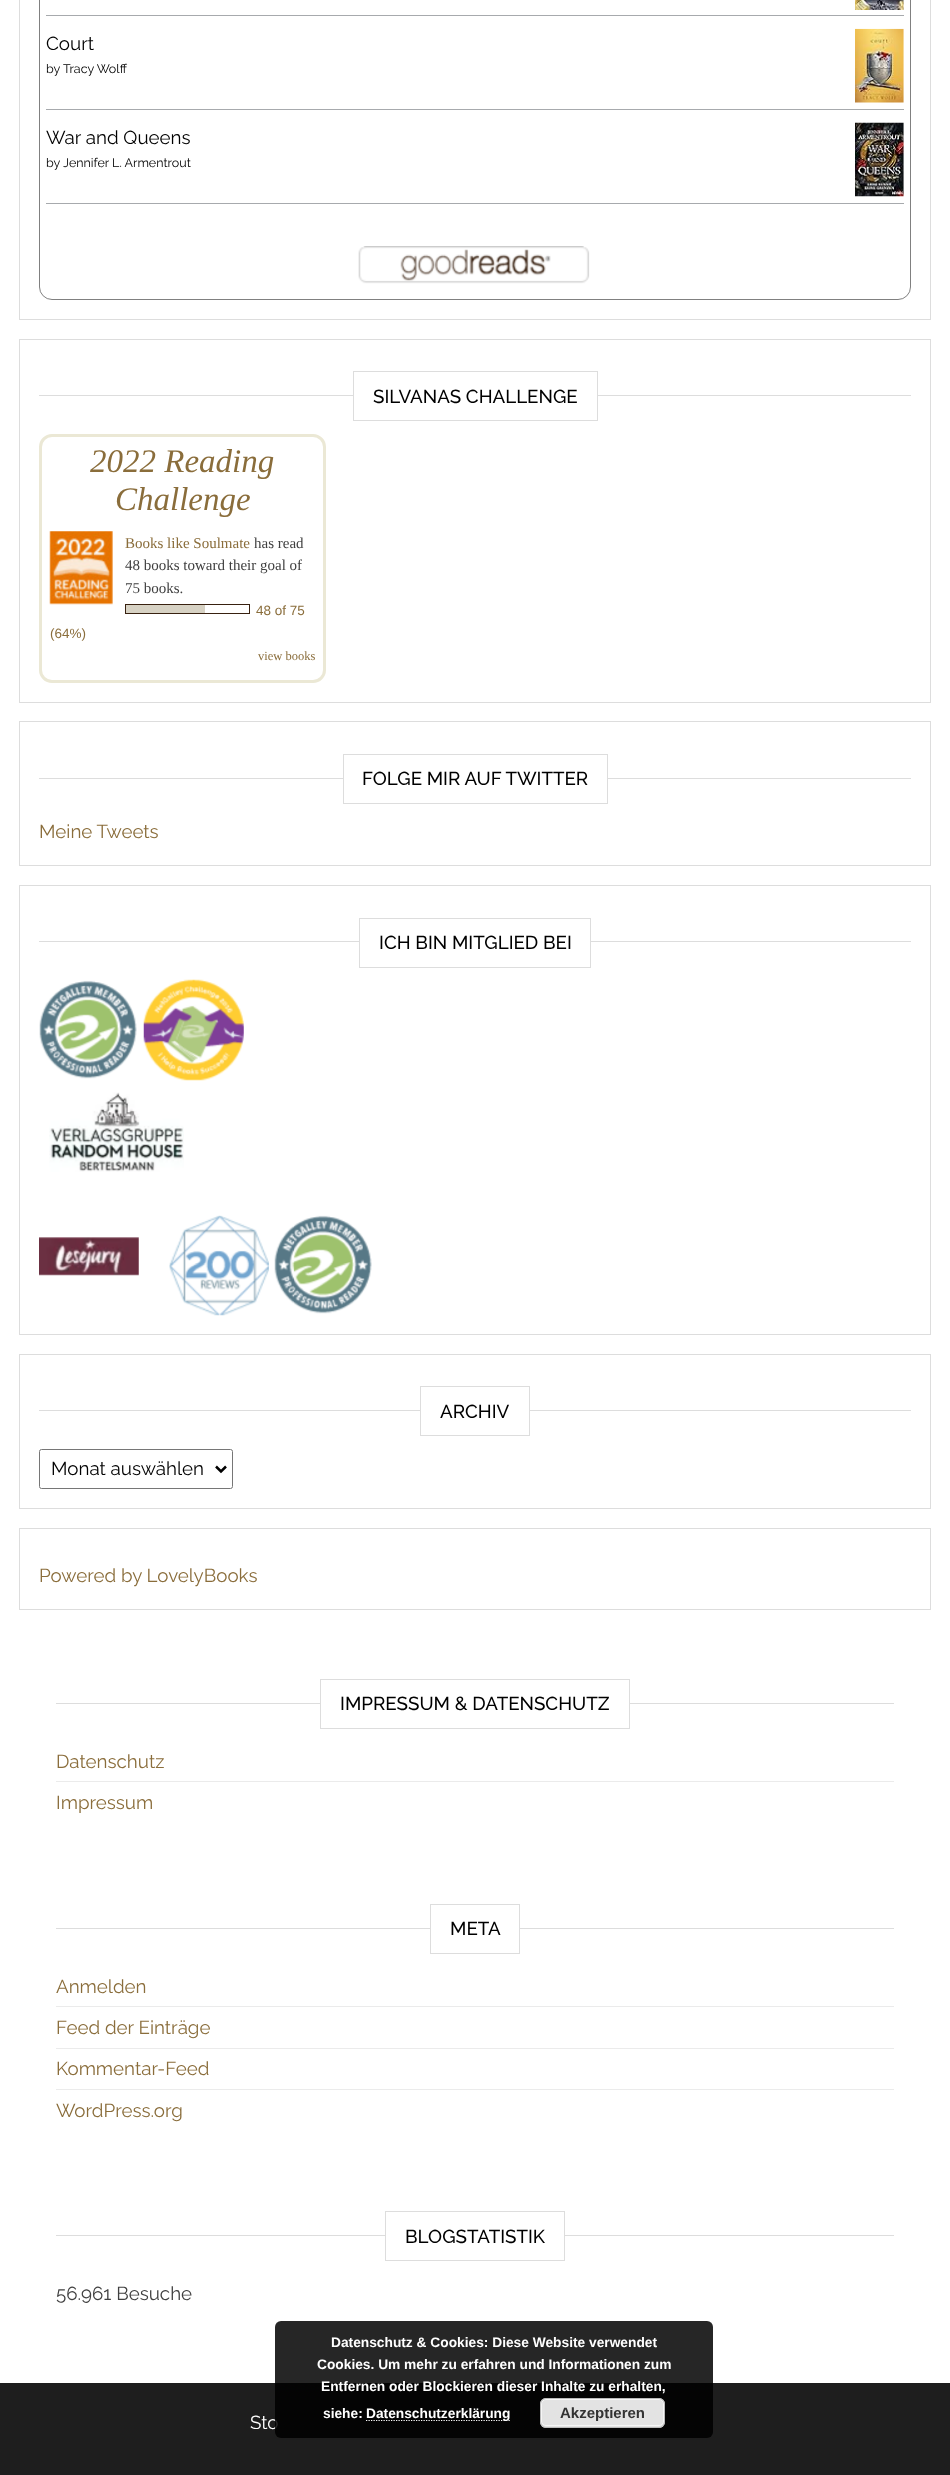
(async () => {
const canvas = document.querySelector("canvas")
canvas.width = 950
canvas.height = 2475
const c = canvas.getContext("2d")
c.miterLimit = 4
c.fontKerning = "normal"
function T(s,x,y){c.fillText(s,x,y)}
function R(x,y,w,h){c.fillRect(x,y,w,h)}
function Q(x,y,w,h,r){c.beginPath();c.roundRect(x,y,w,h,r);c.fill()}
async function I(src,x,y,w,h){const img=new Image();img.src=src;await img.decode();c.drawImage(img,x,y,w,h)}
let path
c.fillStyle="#fff"
R(0,0,950,2475)
c.strokeStyle="#ddd"
c.strokeRect(19.5,-.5,911,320)
c.beginPath()
c.roundRect(39.5,-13.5,871,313,12.5)
c.strokeStyle="#808080"
c.stroke()
c.fillStyle="#a7aaad"
R(46,15,858,1)
await I("1.png",855,0,49,10)
R(46,109,858,1)
c.font="18.75px Raleway"
c.fillStyle="#000"
T("Court",46,50)
await I("2.png",855,28,49,75)
c.font="12.5px Raleway"
T("by",46,73)
T("Tracy Wolff",63,73)
c.fillStyle="#a7aaad"
R(46,203,858,1)
c.font="18.75px Raleway"
c.fillStyle="#000"
T("War and Queens",46,144)
await I("3.png",855,122,49,75)
c.font="12.5px Raleway"
T("by",46,167)
T("Jennifer L. Armentrout",63,167)
await I("4.png",358,246,232,38)
c.strokeStyle="#ddd"
c.strokeRect(19.5,339.5,911,363)
c.fillStyle="#ddd"
R(39,395,872,1)
c.fillStyle="#fff"
R(354,395,243,1)
c.strokeRect(353.5,371.5,244,49)
c.font="500 18.75px Raleway"
c.fillStyle="#000"
T("SILVANAS CHALLENGE",373,403)
c.beginPath()
c.roundRect(40.5,435.5,284,246,11.5)
c.strokeStyle="#ebe8d5"
c.lineWidth=3
c.stroke()
c.font="italic 33px Liberation Serif"
c.fillStyle="#8a6d3b"
T("2022 Reading",90,472)
T("Challenge",115,510)
await I("5.png",49,531,64,74)
c.font="15px Liberation Serif"
T("Books like Soulmate",125,548)
c.fillStyle="#404040"
T("has read",254,548)
T("48 books toward their goal of",125,570)
T("75 books.",125,593)
c.strokeStyle="#382110"
c.lineWidth=1
c.strokeRect(125.5,604.5,124,9)
c.fillStyle="#d7d2c4"
R(126,605,79,8)
c.font="13.5px Liberation Sans"
c.fillStyle="#8a6d3b"
T("48 of 75",256,615)
T("(64%)",50,638)
c.font="12.5px Liberation Serif"
T("view books",258,660)
c.strokeStyle="#ddd"
c.strokeRect(19.5,721.5,911,144)
c.fillStyle="#ddd"
R(39,778,872,1)
c.fillStyle="#fff"
R(344,778,263,1)
c.strokeRect(343.5,754.5,264,49)
c.font="500 18.75px Raleway"
c.fillStyle="#000"
T("FOLGE MIR AUF TWITTER",362,785)
c.font="18.75px Raleway"
c.fillStyle="#8a6d3b"
T("Meine Tweets",39,838)
c.strokeRect(19.5,885.5,911,449)
c.fillStyle="#ddd"
R(39,941,872,1)
c.fillStyle="#fff"
R(360,941,230,1)
c.strokeRect(359.5,918.5,231,49)
c.font="500 18.75px Raleway"
c.fillStyle="#000"
T("ICH BIN MITGLIED BEI",379,949)
await I("6.png",39,980,98,99)
await I("7.png",143,979,101,102)
await I("8.png",49,1092,135,80)
await I("9.png",39,1237,100,39)
await I("10.png",169,1215,100,101)
await I("11.png",274,1215,98,99)
c.strokeRect(19.5,1354.5,911,154)
c.fillStyle="#ddd"
R(39,1410,872,1)
c.fillStyle="#fff"
R(421,1410,108,1)
c.strokeRect(420.5,1386.5,109,49)
c.fillStyle="#000"
T("ARCHIV",440,1418)
c.beginPath()
c.roundRect(39.5,1449.5,193,39,2)
c.strokeStyle="#767676"
c.stroke()
path = new Path2D("M216 1466.5l5 5l5-5")
c.strokeStyle="#000"
c.lineWidth=2.5
c.stroke(path)
c.font="18.75px Raleway"
T("Monat auswählen",51,1475)
c.strokeStyle="#ddd"
c.lineWidth=1
c.strokeRect(19.5,1528.5,911,81)
c.fillStyle="#8a6d3b"
T("Powered by LovelyBooks",39,1582)
c.fillStyle="#ddd"
R(56,1703,838,1)
c.fillStyle="#fff"
R(321,1703,308,1)
c.strokeRect(320.5,1679.5,309,49)
c.font="500 18.75px Raleway"
c.fillStyle="#000"
T("IMPRESSUM & DATENSCHUTZ",340,1710)
c.fillStyle="#ebebeb"
R(56,1781,838,1)
c.font="18.75px Raleway"
c.fillStyle="#8a6d3b"
T("Datenschutz",56,1768)
T("Impressum",56,1809)
c.fillStyle="#ddd"
R(56,1928,838,1)
c.fillStyle="#fff"
R(431,1928,88,1)
c.strokeRect(430.5,1904.5,89,49)
c.font="500 18.75px Raleway"
c.fillStyle="#000"
T("META",450,1935)
c.fillStyle="#ebebeb"
R(56,2006,838,1)
c.font="18.75px Raleway"
c.fillStyle="#8a6d3b"
T("Anmelden",56,1993)
c.fillStyle="#ebebeb"
R(56,2048,838,1)
c.fillStyle="#8a6d3b"
T("Feed der Einträge",56,2034)
c.fillStyle="#ebebeb"
R(56,2089,838,1)
c.fillStyle="#8a6d3b"
T("Kommentar-Feed",56,2075)
T("WordPress.org",56,2117)
c.fillStyle="#ddd"
R(56,2235,838,1)
c.fillStyle="#fff"
R(386,2235,178,1)
c.strokeRect(385.5,2211.5,179,49)
c.font="500 18.75px Raleway"
c.fillStyle="#000"
T("BLOGSTATISTIK",405,2243)
c.font="18.75px Raleway"
c.fillStyle="#404040"
T("56.961 Besuche",56,2300)
c.fillStyle="#1e1e1e"
R(0,2383,950,92)
c.fillStyle="#fff"
T("Sto",250,2429)
c.fillStyle="#000000d9"
Q(275,2321,438,117,6)
c.font="bold 13.75px Liberation Sans"
c.fillStyle="#fff"
T("Datenschutz & Cookies: Diese Website verwendet",331,2347)
T("Cookies. Um mehr zu erfahren und Informationen zum",317,2369)
T("Entfernen oder Blockieren dieser Inhalte zu erhalten,",321,2391)
T("siehe:",323,2418)
path = new Path2D("M366 2420.5h145")
c.strokeStyle="#fff"
c.lineWidth=1.2
c.setLineDash([1.25,1.25])
c.stroke(path)
T("Datenschutzerklärung",366,2418)
c.fillStyle="#e3e3e3"
Q(540,2398,125,30,6)
c.beginPath()
c.roundRect(541.5,2399.5,122,26,4.5)
c.strokeStyle="#f6f6f6"
c.lineWidth=1
c.setLineDash([])
c.stroke()
c.beginPath()
c.roundRect(540.5,2398.5,124,29,5.5)
c.strokeStyle="#bbb"
c.stroke()
c.font="bold 15px Liberation Sans"
c.fillStyle="#333"
T("Akzeptieren",560,2418)
})()
